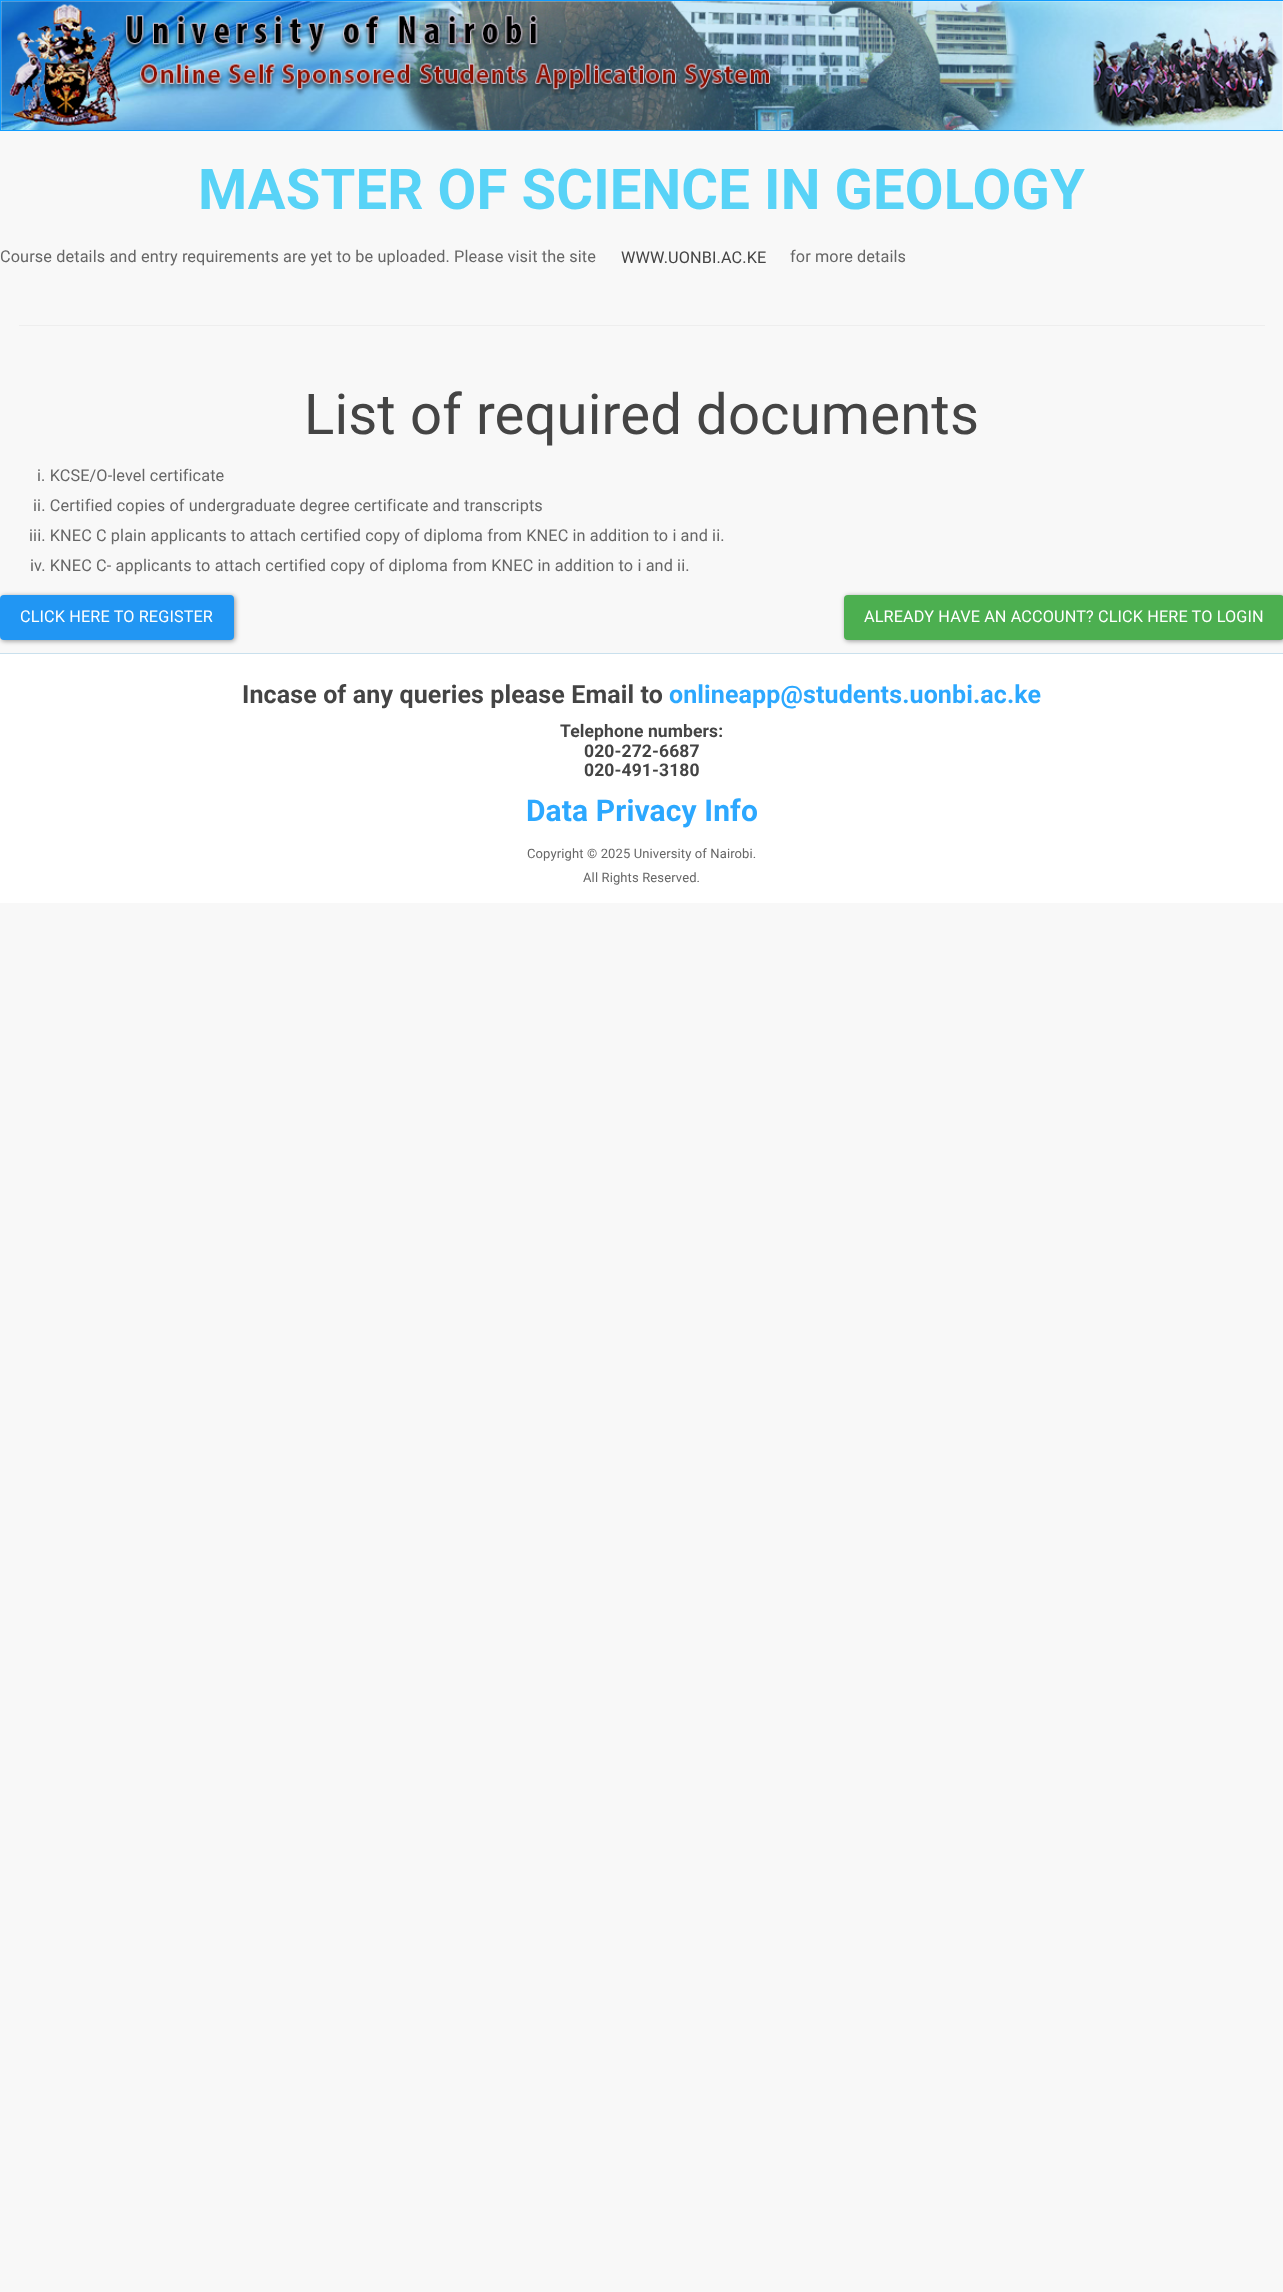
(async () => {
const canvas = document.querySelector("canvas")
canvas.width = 1283
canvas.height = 2292
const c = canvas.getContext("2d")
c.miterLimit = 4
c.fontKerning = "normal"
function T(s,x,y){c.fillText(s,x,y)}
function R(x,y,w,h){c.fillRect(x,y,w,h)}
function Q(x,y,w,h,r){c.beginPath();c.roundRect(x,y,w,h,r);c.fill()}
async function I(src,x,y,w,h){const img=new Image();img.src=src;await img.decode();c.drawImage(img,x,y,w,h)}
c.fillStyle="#f8f8f8"
R(0,0,1283,2292)
c.strokeStyle="#109cff"
c.strokeRect(.5,.5,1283,130)
await I("1.png",1,1,1282,129)
c.letterSpacing="0.12px"
c.font="bold 56.25px Roboto"
c.fillStyle="#58d3f7"
T("MASTER OF SCIENCE IN GEOLOGY",198,209)
c.font="16.25px Roboto"
c.fillStyle="#666"
T("Course details and entry requirements are yet to be uploaded. Please visit the site",0,262)
c.fillStyle="#444"
T("WWW.UONBI.AC.KE",621,263)
c.fillStyle="#666"
T("for more details",790,262)
c.fillStyle="#eee"
R(19,325,1246,1)
c.font="56.25px Roboto"
c.fillStyle="#444"
T("List of required documents",304,434)
c.font="16.25px Roboto"
c.fillStyle="#666"
T("i. KCSE/O-level certificate",37,481)
T("ii. Certified copies of undergraduate degree certificate and transcripts",33,511)
T("iii. KNEC C plain applicants to attach certified copy of diploma from KNEC in addition to i and ii.",29,541)
T("iv. KNEC C- applicants to attach certified copy of diploma from KNEC in addition to i and ii.",30,571)
c.fillStyle="#00000066"
c.filter="blur(2.5px)"
c.beginPath()
c.roundRect(1,596,234,45,4)
c.fill()
c.filter="none"
c.fillStyle="#2196f3"
Q(0,595,234,45,4)
c.fillStyle="#fff"
T("CLICK HERE TO REGISTER",20,622)
c.fillStyle="#00000066"
c.filter="blur(2.5px)"
c.beginPath()
c.roundRect(845,596,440,45,4)
c.fill()
c.filter="none"
c.fillStyle="#4caf50"
Q(844,595,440,45,4)
c.fillStyle="#fff"
T("ALREADY HAVE AN ACCOUNT? CLICK HERE TO LOGIN",864,622)
R(0,654,1283,249)
c.fillStyle="#c9e0ed"
R(0,653,1283,1)
c.font="bold 25px Roboto"
c.fillStyle="#444"
T("Incase of any queries please Email to",242,703)
c.fillStyle="#2ca8ff"
T("onlineapp@students.uonbi.ac.ke",669,703)
c.font="bold 17.5px Roboto"
c.fillStyle="#444"
T("Telephone numbers:",560,737)
T("020-272-6687",584,757)
T("020-491-3180",584,776)
c.font="bold 30px Roboto"
c.fillStyle="#2ca8ff"
T("Data Privacy Info",526,821)
c.font="13px Roboto"
c.fillStyle="#666"
T("Copyright © 2025 University of Nairobi.",527,858)
T("All Rights Reserved.",583,882)
})()
